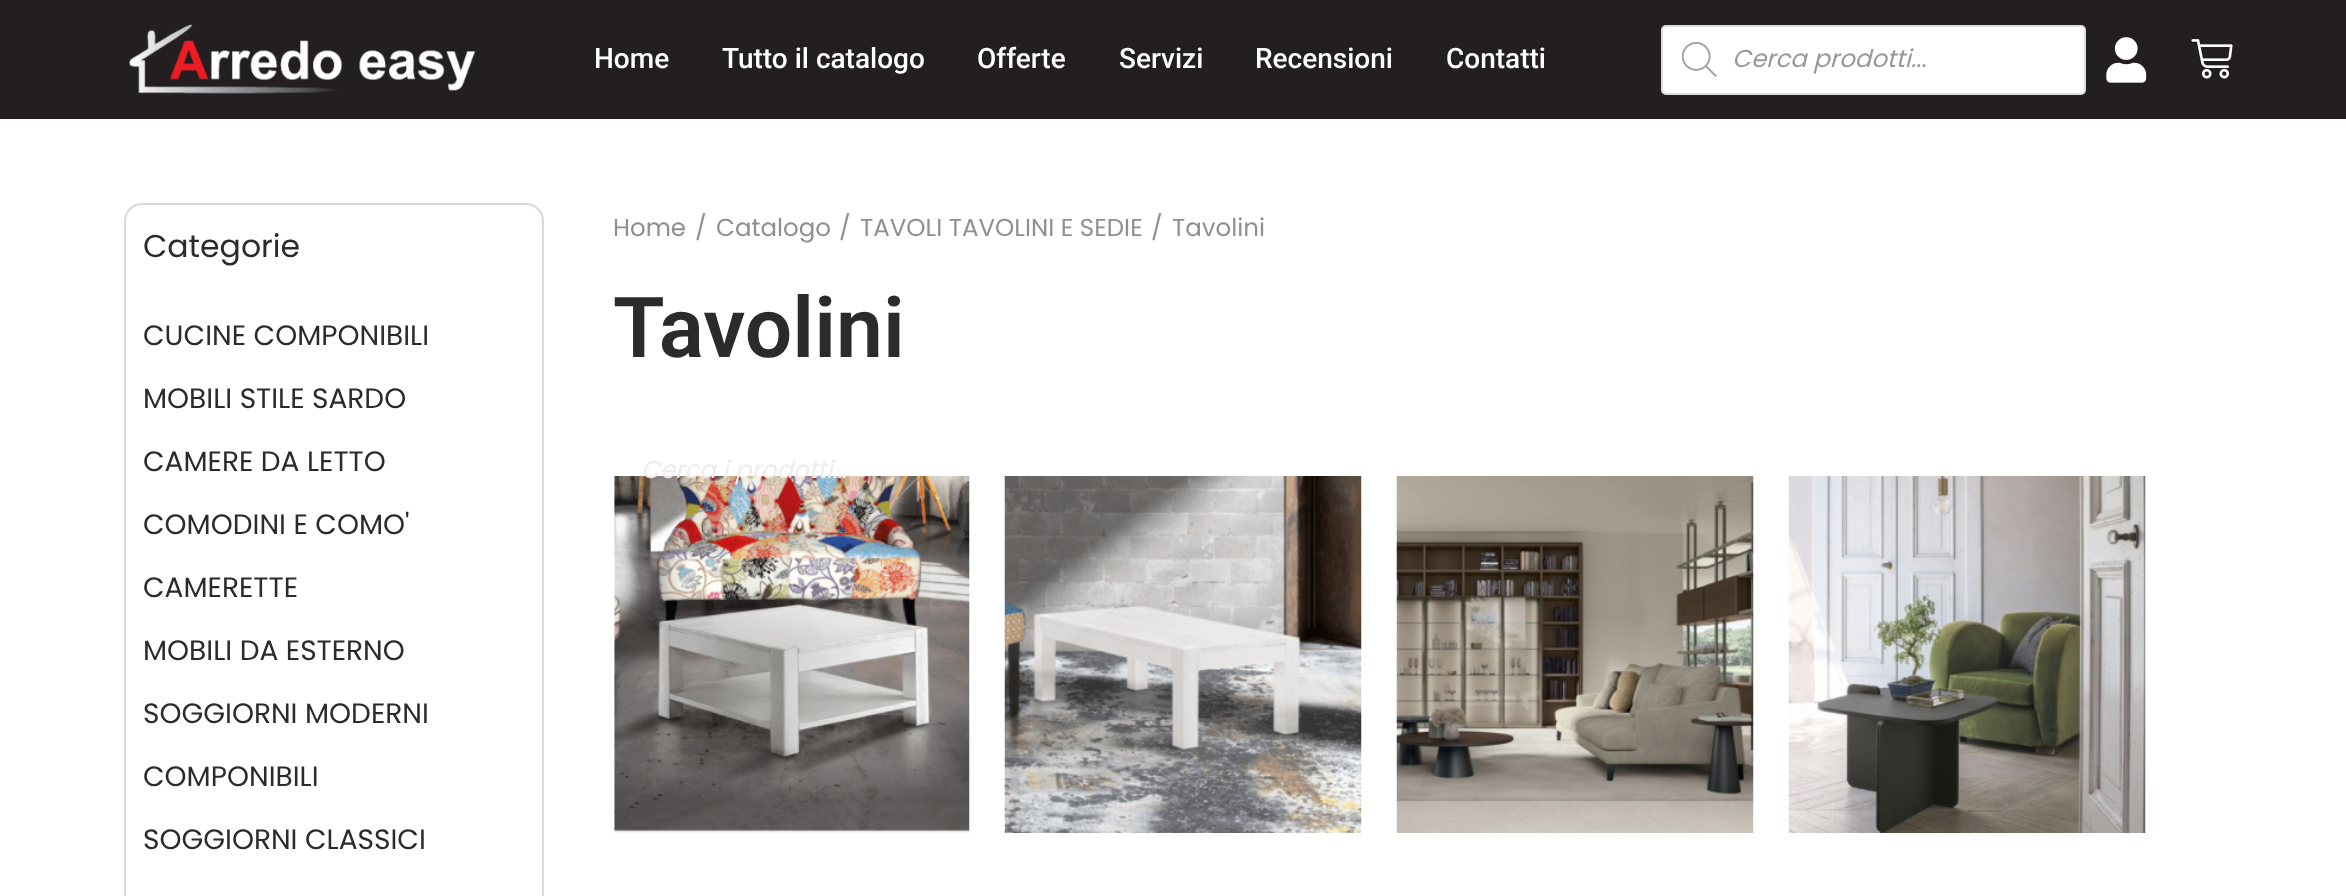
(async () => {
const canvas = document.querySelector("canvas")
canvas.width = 2346
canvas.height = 896
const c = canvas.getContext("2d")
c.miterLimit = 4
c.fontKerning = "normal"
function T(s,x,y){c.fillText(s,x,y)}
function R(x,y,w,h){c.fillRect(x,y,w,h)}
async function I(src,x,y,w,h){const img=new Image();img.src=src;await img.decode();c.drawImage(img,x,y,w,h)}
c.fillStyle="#fff"
R(0,0,2346,896)
c.fillStyle="#231f20"
R(0,0,2346,119)
await I("1.png",129,24,347,70)
c.font="500 28px Roboto"
c.fillStyle="#fff"
T("Home",594,68)
T("Tutto il catalogo",722,68)
T("Offerte",977,68)
T("Servizi",1119,68)
T("Recensioni",1255,68)
T("Contatti",1446,68)
c.beginPath()
c.roundRect(1662,26,423,68,4)
c.fill()
c.strokeStyle="#ddd"
c.lineWidth=2
c.stroke()
await I("2.png",1682,42,35,35)
c.font="italic 24.5px Poppins"
c.fillStyle="#999"
T("Cerca prodotti...",1732,67)
await I("3.png",2106,37,41,46)
await I("4.png",2191,39,42,40)
c.beginPath()
c.roundRect(125,204,418,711,17)
c.strokeStyle="#d9d9d9"
c.stroke()
c.font="31.5px Poppins"
c.fillStyle="#2b2b2b"
T("Categorie",143,257)
c.font="28px Poppins"
T("CUCINE COMPONIBILI",143,345)
T("MOBILI STILE SARDO",143,408)
T("CAMERE DA LETTO",143,471)
T("COMODINI E COMO'",143,534)
T("CAMERETTE",143,597)
T("MOBILI DA ESTERNO",143,660)
T("SOGGIORNI MODERNI",143,723)
T("COMPONIBILI",143,786)
T("SOGGIORNI CLASSICI",143,849)
c.font="24.5px Poppins"
c.fillStyle="#8f8f8f"
T("Home",613,236)
T("/",695,236)
T("Catalogo",716,236)
T("/",839,236)
T("TAVOLI TAVOLINI E SEDIE",860,236)
T("/",1151,236)
T("Tavolini",1172,236)
c.font="600 84px Roboto"
c.fillStyle="#2b2b2b"
T("Tavolini",613,357)
await I("5.png",614,476,356,357)
await I("6.png",1004,476,358,357)
await I("7.png",1396,476,358,357)
await I("8.png",1788,476,358,357)
c.font="italic 24.5px Poppins"
c.fillStyle="#efecea"
T("Cerca i prodotti…",641,478)
})()
